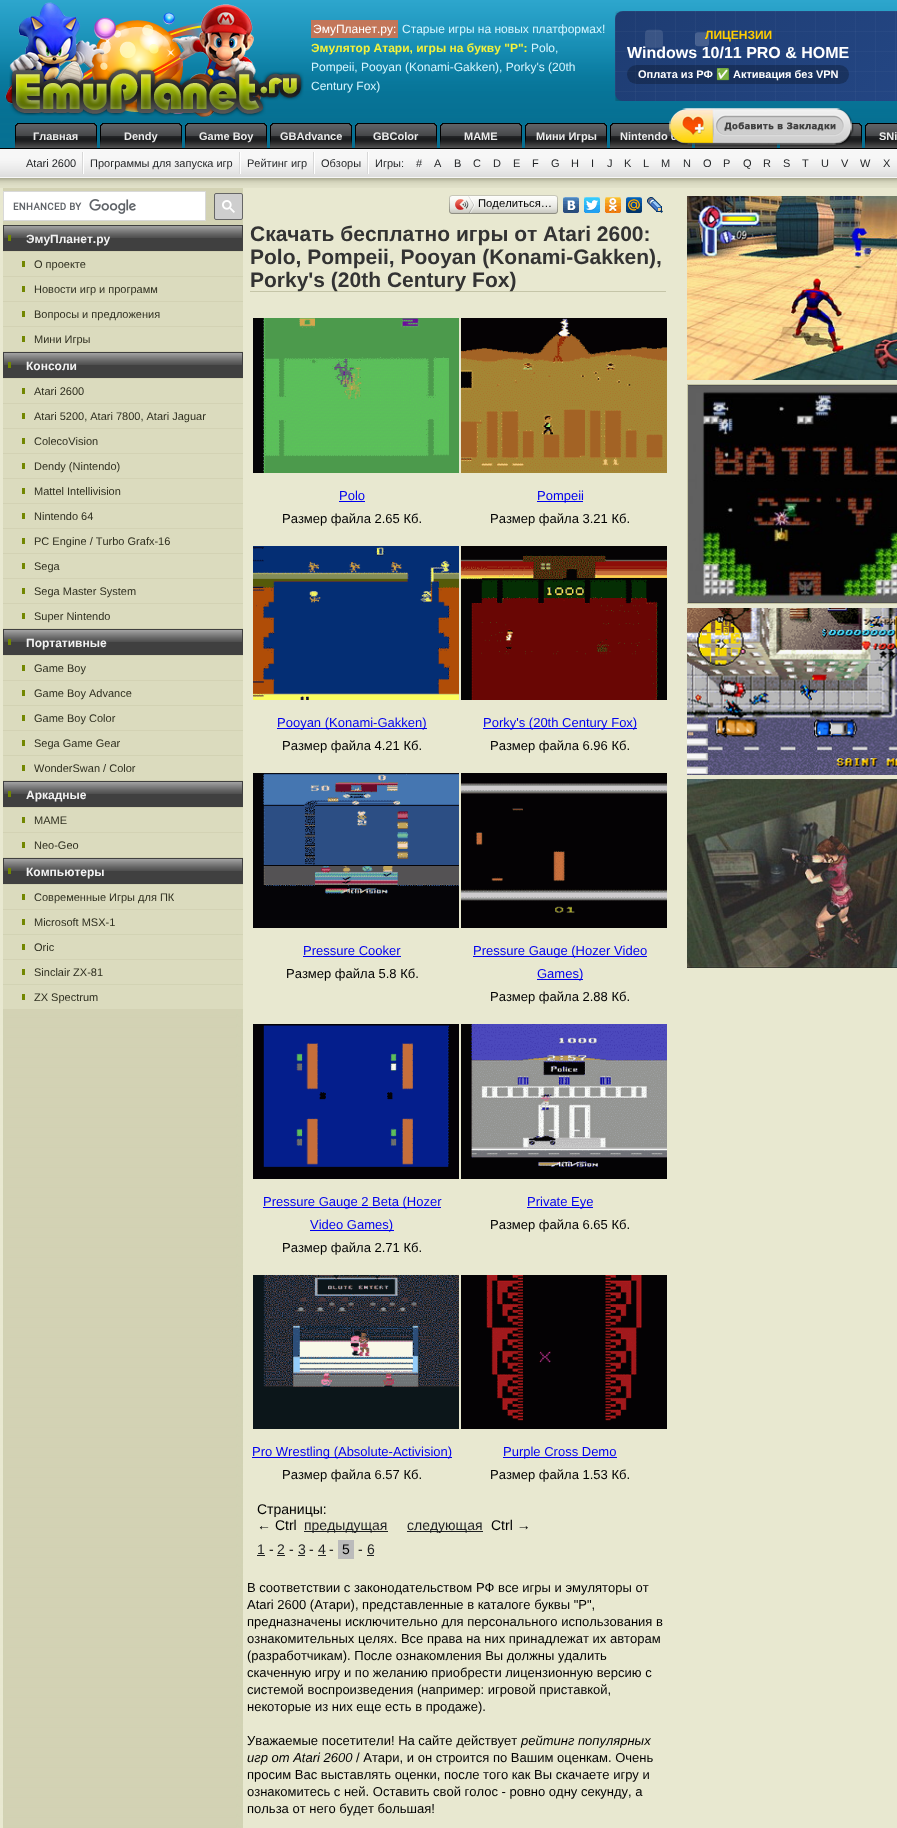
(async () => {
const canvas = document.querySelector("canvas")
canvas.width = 897
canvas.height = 1828
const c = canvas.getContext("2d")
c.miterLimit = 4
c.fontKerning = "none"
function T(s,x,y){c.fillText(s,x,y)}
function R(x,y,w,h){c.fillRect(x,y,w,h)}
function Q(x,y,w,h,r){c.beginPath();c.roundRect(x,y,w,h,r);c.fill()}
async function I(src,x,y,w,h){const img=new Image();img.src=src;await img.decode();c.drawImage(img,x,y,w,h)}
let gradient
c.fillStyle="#fff"
R(0,0,897,1828)
await I("1.png",0,0,897,178)
await I("2.png",5,2,299,115)
c.fillStyle="#c37659"
R(311,20,87,18)
c.font="12px Liberation Sans"
c.fillStyle="#fff"
T("ЭмуПланет.ру:",313,33)
c.fillStyle="#d4f5ff"
T("Старые игры на новых платформах!",402,33)
c.font="bold 12px Liberation Sans"
c.fillStyle="#f4f23c"
T("Эмулятор Атари, игры на букву \"P\":",311,52)
c.font="12px Liberation Sans"
c.fillStyle="#d4f5ff"
T("Polo,",531,52)
T("Pompeii, Pooyan (Konami-Gakken), Porky's (20th",311,71)
T("Century Fox)",311,90)
await I("5.png",525,123,82,25)
await I("5.png",610,123,82,25)
await I("5.png",780,123,82,25)
await I("6.png",865,123,32,25)
c.save()
c.beginPath()
c.rect(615,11,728,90)
c.clip()
c.fillStyle="#00000066"
c.filter="blur(7.5px)"
c.beginPath()
c.roundRect(615,15,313,90,8)
c.fill()
c.filter="none"
c.restore()
gradient = c.createLinearGradient(775,-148,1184,261)
gradient.addColorStop(0,"#1e3c72")
gradient.addColorStop(1,"#2a5298")
c.fillStyle = gradient
Q(615,11,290,90,8)
await I("3.png",615,11,282,90)
c.font="bold 12px Liberation Sans"
c.fillStyle="#fc0"
T("ЛИЦЕНЗИИ",705,39)
c.font="bold 16px Liberation Sans"
c.fillStyle="#fff"
T("Windows 10/11 PRO & HOME",627,58)
c.fillStyle="#00000040"
Q(627,65,222,19,9.5)
c.font="bold 11px Liberation Sans"
c.fillStyle="#fff"
T("Оплата из РФ",638,78)
c.font="bold 11px Noto Color Emoji"
T("✅",716,78)
c.font="bold 11px Liberation Sans"
T("Активация без VPN",733,78)
c.fillStyle="#ebebeb"
T("Nintendo 6",620,140)
await I("7.png",695,142,82,6)
await I("4.png",669,108,185,39)
await I("5.png",15,123,82,25)
T("Главная",33,140)
await I("5.png",100,123,82,25)
T("Dendy",124,140)
await I("5.png",185,123,82,25)
T("Game Boy",199,140)
await I("5.png",270,123,82,25)
T("GBAdvance",280,140)
await I("5.png",355,123,82,25)
T("GBColor",373,140)
await I("5.png",440,123,82,25)
T("MAME",464,140)
T("Мини Игры",536,140)
T("SNi",879,140)
await I("8.png",82,152,2,22)
c.font="11px Liberation Sans"
c.fillStyle="#1f2123"
T("Atari 2600",26,167)
await I("8.png",239,152,2,22)
T("Программы для запуска игр",90,167)
await I("8.png",313,152,2,22)
T("Рейтинг игр",247,167)
await I("8.png",367,152,2,22)
T("Обзоры",321,167)
T("Игры:",375,167)
T("#",416,167)
T("A",434,167)
T("B",454,167)
T("C",473,167)
T("D",493,167)
T("E",513,167)
T("F",532,167)
T("G",551,167)
T("H",571,167)
T("I",591,167)
T("J",607,167)
T("K",624,167)
T("L",643,167)
T("M",661,167)
T("N",683,167)
T("O",703,167)
T("P",723,167)
T("Q",743,167)
T("R",763,167)
T("S",783,167)
T("T",802,167)
T("U",821,167)
T("V",841,167)
T("W",860,167)
T("X",883,167)
await I("9.png",0,178,897,10)
await I("10.png",0,188,897,1640)
c.fillStyle="#fff"
c.beginPath()
c.rect(3.5,191.5,202,29)
c.fill()
c.strokeStyle="#d9d9d9"
c.stroke()
await I("11.png",13,199,123,15)
c.fillStyle="#cecece"
c.beginPath()
c.roundRect(214.5,193.5,28,26,1.5)
c.fill()
c.strokeStyle="#666"
c.stroke()
await I("12.png",222,200,13,13)
await I("13.png",4,225,238,26)
c.fillStyle="#404040"
R(242,225,1,26)
R(3,225,1,26)
c.font="bold 12px Liberation Sans"
c.fillStyle="#f3f3f3"
T("ЭмуПланет.ру",26,243)
c.fillStyle="#728701"
R(8,235,3,6)
c.fillStyle="#dbdbbe"
R(3,252,240,24)
c.fillStyle="#728701"
R(22,261,3,6)
c.font="11px Liberation Sans"
c.fillStyle="#2f2f20"
T("О проекте",34,268)
c.fillStyle="#dbdbbe"
R(3,277,240,24)
c.fillStyle="#728701"
R(22,286,3,6)
c.fillStyle="#2f2f20"
T("Новости игр и программ",34,293)
c.fillStyle="#dbdbbe"
R(3,302,240,24)
c.fillStyle="#728701"
R(22,311,3,6)
c.fillStyle="#2f2f20"
T("Вопросы и предложения",34,318)
c.fillStyle="#dbdbbe"
R(3,327,240,24)
c.fillStyle="#728701"
R(22,336,3,6)
c.fillStyle="#2f2f20"
T("Мини Игры",34,343)
await I("13.png",4,352,238,26)
c.fillStyle="#404040"
R(242,352,1,26)
R(3,352,1,26)
c.font="bold 12px Liberation Sans"
c.fillStyle="#f3f3f3"
T("Консоли",26,370)
c.fillStyle="#728701"
R(8,362,3,6)
c.fillStyle="#dbdbbe"
R(3,379,240,24)
c.fillStyle="#728701"
R(22,388,3,6)
c.font="11px Liberation Sans"
c.fillStyle="#2f2f20"
T("Atari 2600",34,395)
c.fillStyle="#dbdbbe"
R(3,404,240,24)
c.fillStyle="#728701"
R(22,413,3,6)
c.fillStyle="#2f2f20"
T("Atari 5200, Atari 7800, Atari Jaguar",34,420)
c.fillStyle="#dbdbbe"
R(3,429,240,24)
c.fillStyle="#728701"
R(22,438,3,6)
c.fillStyle="#2f2f20"
T("ColecoVision",34,445)
c.fillStyle="#dbdbbe"
R(3,454,240,24)
c.fillStyle="#728701"
R(22,463,3,6)
c.fillStyle="#2f2f20"
T("Dendy (Nintendo)",34,470)
c.fillStyle="#dbdbbe"
R(3,479,240,24)
c.fillStyle="#728701"
R(22,488,3,6)
c.fillStyle="#2f2f20"
T("Mattel Intellivision",34,495)
c.fillStyle="#dbdbbe"
R(3,504,240,24)
c.fillStyle="#728701"
R(22,513,3,6)
c.fillStyle="#2f2f20"
T("Nintendo 64",34,520)
c.fillStyle="#dbdbbe"
R(3,529,240,24)
c.fillStyle="#728701"
R(22,538,3,6)
c.fillStyle="#2f2f20"
T("PC Engine / Turbo Grafx-16",34,545)
c.fillStyle="#dbdbbe"
R(3,554,240,24)
c.fillStyle="#728701"
R(22,563,3,6)
c.fillStyle="#2f2f20"
T("Sega",34,570)
c.fillStyle="#dbdbbe"
R(3,579,240,24)
c.fillStyle="#728701"
R(22,588,3,6)
c.fillStyle="#2f2f20"
T("Sega Master System",34,595)
c.fillStyle="#dbdbbe"
R(3,604,240,24)
c.fillStyle="#728701"
R(22,613,3,6)
c.fillStyle="#2f2f20"
T("Super Nintendo",34,620)
await I("13.png",4,629,238,26)
c.fillStyle="#404040"
R(242,629,1,26)
R(3,629,1,26)
c.font="bold 12px Liberation Sans"
c.fillStyle="#f3f3f3"
T("Портативные",26,647)
c.fillStyle="#728701"
R(8,639,3,6)
c.fillStyle="#dbdbbe"
R(3,656,240,24)
c.fillStyle="#728701"
R(22,665,3,6)
c.font="11px Liberation Sans"
c.fillStyle="#2f2f20"
T("Game Boy",34,672)
c.fillStyle="#dbdbbe"
R(3,681,240,24)
c.fillStyle="#728701"
R(22,690,3,6)
c.fillStyle="#2f2f20"
T("Game Boy Advance",34,697)
c.fillStyle="#dbdbbe"
R(3,706,240,24)
c.fillStyle="#728701"
R(22,715,3,6)
c.fillStyle="#2f2f20"
T("Game Boy Color",34,722)
c.fillStyle="#dbdbbe"
R(3,731,240,24)
c.fillStyle="#728701"
R(22,740,3,6)
c.fillStyle="#2f2f20"
T("Sega Game Gear",34,747)
c.fillStyle="#dbdbbe"
R(3,756,240,24)
c.fillStyle="#728701"
R(22,765,3,6)
c.fillStyle="#2f2f20"
T("WonderSwan / Color",34,772)
await I("13.png",4,781,238,26)
c.fillStyle="#404040"
R(242,781,1,26)
R(3,781,1,26)
c.font="bold 12px Liberation Sans"
c.fillStyle="#f3f3f3"
T("Аркадные",26,799)
c.fillStyle="#728701"
R(8,791,3,6)
c.fillStyle="#dbdbbe"
R(3,808,240,24)
c.fillStyle="#728701"
R(22,817,3,6)
c.font="11px Liberation Sans"
c.fillStyle="#2f2f20"
T("MAME",34,824)
c.fillStyle="#dbdbbe"
R(3,833,240,24)
c.fillStyle="#728701"
R(22,842,3,6)
c.fillStyle="#2f2f20"
T("Neo-Geo",34,849)
await I("13.png",4,858,238,26)
c.fillStyle="#404040"
R(242,858,1,26)
R(3,858,1,26)
c.font="bold 12px Liberation Sans"
c.fillStyle="#f3f3f3"
T("Компьютеры",26,876)
c.fillStyle="#728701"
R(8,868,3,6)
c.fillStyle="#dbdbbe"
R(3,885,240,24)
c.fillStyle="#728701"
R(22,894,3,6)
c.font="11px Liberation Sans"
c.fillStyle="#2f2f20"
T("Современные Игры для ПК",34,901)
c.fillStyle="#dbdbbe"
R(3,910,240,24)
c.fillStyle="#728701"
R(22,919,3,6)
c.fillStyle="#2f2f20"
T("Microsoft MSX-1",34,926)
c.fillStyle="#dbdbbe"
R(3,935,240,24)
c.fillStyle="#728701"
R(22,944,3,6)
c.fillStyle="#2f2f20"
T("Oric",34,951)
c.fillStyle="#dbdbbe"
R(3,960,240,24)
c.fillStyle="#728701"
R(22,969,3,6)
c.fillStyle="#2f2f20"
T("Sinclair ZX-81",34,976)
c.fillStyle="#dbdbbe"
R(3,985,240,24)
c.fillStyle="#728701"
R(22,994,3,6)
c.fillStyle="#2f2f20"
T("ZX Spectrum",34,1001)
await I("14.png",452,195,103,19)
await I("15.png",449,195,3,19)
await I("16.png",455,196,20,17)
c.font="11.25px Liberation Sans"
c.fillStyle="#000"
T("Поделиться…",478,207)
await I("17.png",555,195,3,19)
await I("18.png",563,197,16,16)
await I("19.png",584,197,16,16)
await I("20.png",605,197,16,16)
await I("21.png",626,197,16,16)
await I("22.png",647,197,16,16)
c.fillStyle="#c5c5a8"
R(250,291,416,1)
c.font="bold 21px Liberation Sans"
c.fillStyle="#333"
T("Скачать бесплатно игры от Atari 2600:",250,241)
T("Polo, Pompeii, Pooyan (Konami-Gakken),",250,264)
T("Porky's (20th Century Fox)",250,287)
await I("23.png",253,318,206,155)
c.font="13px Liberation Sans"
c.fillStyle="#00e"
T("Polo",339,500)
R(339,501,26,1)
c.fillStyle="#000"
T("Размер файла 2.65 Кб.",282,523)
await I("24.png",461,318,206,155)
c.fillStyle="#00e"
R(537,501,46,1)
T("Pompeii",537,500)
c.fillStyle="#000"
T("Размер файла 3.21 Кб.",490,523)
await I("25.png",253,546,206,154)
c.fillStyle="#00e"
R(277,728,150,1)
T("Pooyan (Konami-Gakken)",277,727)
c.fillStyle="#000"
T("Размер файла 4.21 Кб.",282,750)
await I("26.png",461,546,206,154)
c.fillStyle="#00e"
R(483,728,154,1)
T("Porky's (20th Century Fox)",483,727)
c.fillStyle="#000"
T("Размер файла 6.96 Кб.",490,750)
await I("27.png",253,773,206,155)
c.fillStyle="#00e"
T("Pressure Cooker",303,955)
R(303,956,98,1)
c.fillStyle="#000"
T("Размер файла 5.8 Кб.",286,978)
await I("28.png",461,773,206,155)
c.fillStyle="#00e"
R(473,956,174,1)
T("Pressure Gauge (Hozer Video",473,955)
R(537,979,46,1)
T("Games)",537,978)
c.fillStyle="#000"
T("Размер файла 2.88 Кб.",490,1001)
await I("29.png",253,1024,206,155)
c.fillStyle="#00e"
R(263,1207,178,1)
T("Pressure Gauge 2 Beta (Hozer",263,1206)
R(310,1230,84,1)
T("Video Games)",310,1229)
c.fillStyle="#000"
T("Размер файла 2.71 Кб.",282,1252)
await I("30.png",461,1024,206,155)
c.fillStyle="#00e"
R(527,1207,66,1)
T("Private Eye",527,1206)
c.fillStyle="#000"
T("Размер файла 6.65 Кб.",490,1229)
await I("31.png",253,1275,206,154)
c.fillStyle="#00e"
R(252,1457,200,1)
T("Pro Wrestling (Absolute-Activision)",252,1456)
c.fillStyle="#000"
T("Размер файла 6.57 Кб.",282,1479)
await I("32.png",461,1275,206,154)
c.fillStyle="#00e"
R(503,1457,114,1)
T("Purple Cross Demo",503,1456)
c.fillStyle="#000"
T("Размер файла 1.53 Кб.",490,1479)
c.font="14px Liberation Sans"
T("Страницы:",257,1514)
T("← Ctrl",257,1530)
c.fillStyle="#1f2123"
R(304,1531,84,1)
T("предыдущая",304,1530)
R(407,1531,76,1)
T("следующая",407,1530)
c.fillStyle="#000"
T("Ctrl →",491,1530)
c.fillStyle="#1f2123"
T("1",257,1554)
R(257,1555,8,1)
c.fillStyle="#000"
T("-",269,1554)
c.fillStyle="#1f2123"
T("2",277,1554)
R(277,1555,8,1)
c.fillStyle="#000"
T("-",289,1554)
c.fillStyle="#1f2123"
T("3",298,1554)
R(298,1555,7,1)
c.fillStyle="#000"
T("-",309,1554)
c.fillStyle="#1f2123"
T("4",318,1554)
R(318,1555,8,1)
c.fillStyle="#000"
T("-",329,1554)
c.fillStyle="#bbb"
R(338,1540,16,19)
c.fillStyle="#000"
T("5",342,1554)
T("-",358,1554)
c.fillStyle="#1f2123"
T("6",367,1554)
R(367,1555,7,1)
c.font="13px Liberation Sans"
c.fillStyle="#000"
T("В соответствии с законодательством РФ все игры и эмуляторы от",247,1592)
T("Atari 2600 (Атари), представленные в каталоге буквы \"P\",",247,1609)
T("предназначены исключительно для персонального использования в",247,1626)
T("ознакомительных целях. Все права на них принадлежат их авторам",247,1643)
T("(разработчикам). После ознакомления Вы должны удалить",247,1660)
T("скаченную игру и по желанию приобрести лицензионную версию с",247,1677)
T("системой воспроизведения (например: игровой приставкой,",247,1694)
T("некоторые из них еще есть в продаже).",247,1711)
T("Уважаемые посетители! На сайте действует",247,1745)
c.font="italic 13px Liberation Sans"
T("рейтинг популярных",521,1745)
T("игр от Atari 2600",247,1762)
c.font="13px Liberation Sans"
T("/ Атари, и он строится по Вашим оценкам. Очень",356,1762)
T("просим Вас выставлять оценки, после того как Вы скачаете игру и",247,1779)
T("ознакомитесь с ней. Оставить свой голос - ровно одну секунду, а",247,1796)
T("польза от него будет большая!",247,1813)
await I("33.png",687,196,210,184)
c.strokeStyle="#c6c6a5"
c.strokeRect(687.5,384.5,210,219)
await I("34.png",688,385,209,218)
await I("35.png",687,608,210,167)
await I("36.png",687,779,210,189)
})()
